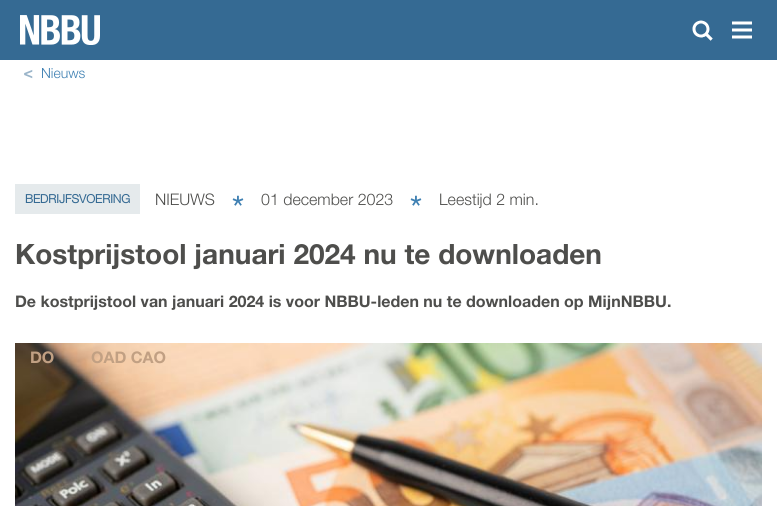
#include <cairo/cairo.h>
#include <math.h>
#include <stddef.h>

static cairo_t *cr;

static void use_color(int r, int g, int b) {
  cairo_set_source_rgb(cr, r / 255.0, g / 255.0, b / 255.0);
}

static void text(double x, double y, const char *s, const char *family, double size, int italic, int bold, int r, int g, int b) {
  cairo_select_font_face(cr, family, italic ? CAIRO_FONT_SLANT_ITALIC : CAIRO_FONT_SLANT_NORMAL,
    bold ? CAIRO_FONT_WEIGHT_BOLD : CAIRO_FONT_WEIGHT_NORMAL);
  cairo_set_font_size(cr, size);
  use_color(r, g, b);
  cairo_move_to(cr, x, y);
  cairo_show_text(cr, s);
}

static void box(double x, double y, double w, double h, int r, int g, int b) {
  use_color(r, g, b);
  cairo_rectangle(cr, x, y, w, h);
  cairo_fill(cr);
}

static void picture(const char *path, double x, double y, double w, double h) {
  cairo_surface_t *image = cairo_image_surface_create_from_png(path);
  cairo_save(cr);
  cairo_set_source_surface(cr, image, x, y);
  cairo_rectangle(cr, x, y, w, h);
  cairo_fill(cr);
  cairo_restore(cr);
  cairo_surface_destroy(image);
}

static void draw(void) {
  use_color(255, 255, 255);
  cairo_paint(cr);
  box(15, 184, 125, 30, 229, 234, 236);
  picture("img_01.png", 232, 195, 12, 11);
  picture("img_01.png", 410, 195, 12, 11);
  picture("img_02.png", 15, 343, 747, 163);
  box(0, 0, 777, 60, 53, 106, 147);
  picture("img_03.png", 20, 15, 80, 30);
  picture("img_04.png", 692, 20, 21, 21);
  picture("img_05.png", 732, 21, 20, 18);
  cairo_save(cr);
  cairo_translate(cr, 33, 70);
  cairo_rotate(cr, 180 * M_PI / 180);
  text(0, 0, ">", "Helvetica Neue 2", 16, 0, 1, 154, 180, 201);
  cairo_restore(cr);
  text(41, 78, "Nieuws", "Helvetica Neue Light", 14, 0, 0, 64, 129, 179);
  text(25, 203, "BEDRIJFSVOERING", "Helvetica Neue", 12, 0, 1, 53, 106, 147);
  text(155, 205, "NIEUWS", "Helvetica Neue Light", 16, 0, 0, 78, 78, 76);
  text(261, 205, "01 december 2023", "Helvetica Neue Light", 16, 0, 0, 78, 78, 76);
  text(439, 205, "Leestijd 2 min.", "Helvetica Neue Light", 16, 0, 0, 78, 78, 76);
  text(15, 264, "Kostprijstool januari 2024 nu te downloaden", "Helvetica Neue 2", 28, 0, 1, 78, 78, 76);
  text(15, 307, "De kostprijstool van januari 2024 is voor NBBU-leden nu te downloaden op MijnNBBU.", "Helvetica Neue 2", 16, 0, 1, 78, 78, 76);
  text(30, 363, "DO", "Helvetica Neue 2", 16, 0, 1, 193, 160, 131);
  text(91, 363, "OAD CAO", "Helvetica Neue 2", 16, 0, 1, 193, 160, 131);
}

int main(void) {
  cairo_surface_t *surface = cairo_image_surface_create(CAIRO_FORMAT_RGB24, 777, 506);
  cr = cairo_create(surface);
  cairo_font_options_t *options = cairo_font_options_create();
  cairo_font_options_set_hint_metrics(options, CAIRO_HINT_METRICS_OFF);
  cairo_font_options_set_hint_style(options, CAIRO_HINT_STYLE_NONE);
  cairo_set_font_options(cr, options);
  cairo_set_miter_limit(cr, 4);
  draw();
  cairo_surface_write_to_png(surface, "out.png");
  cairo_font_options_destroy(options);
  cairo_destroy(cr);
  cairo_surface_destroy(surface);
  return 0;
}
